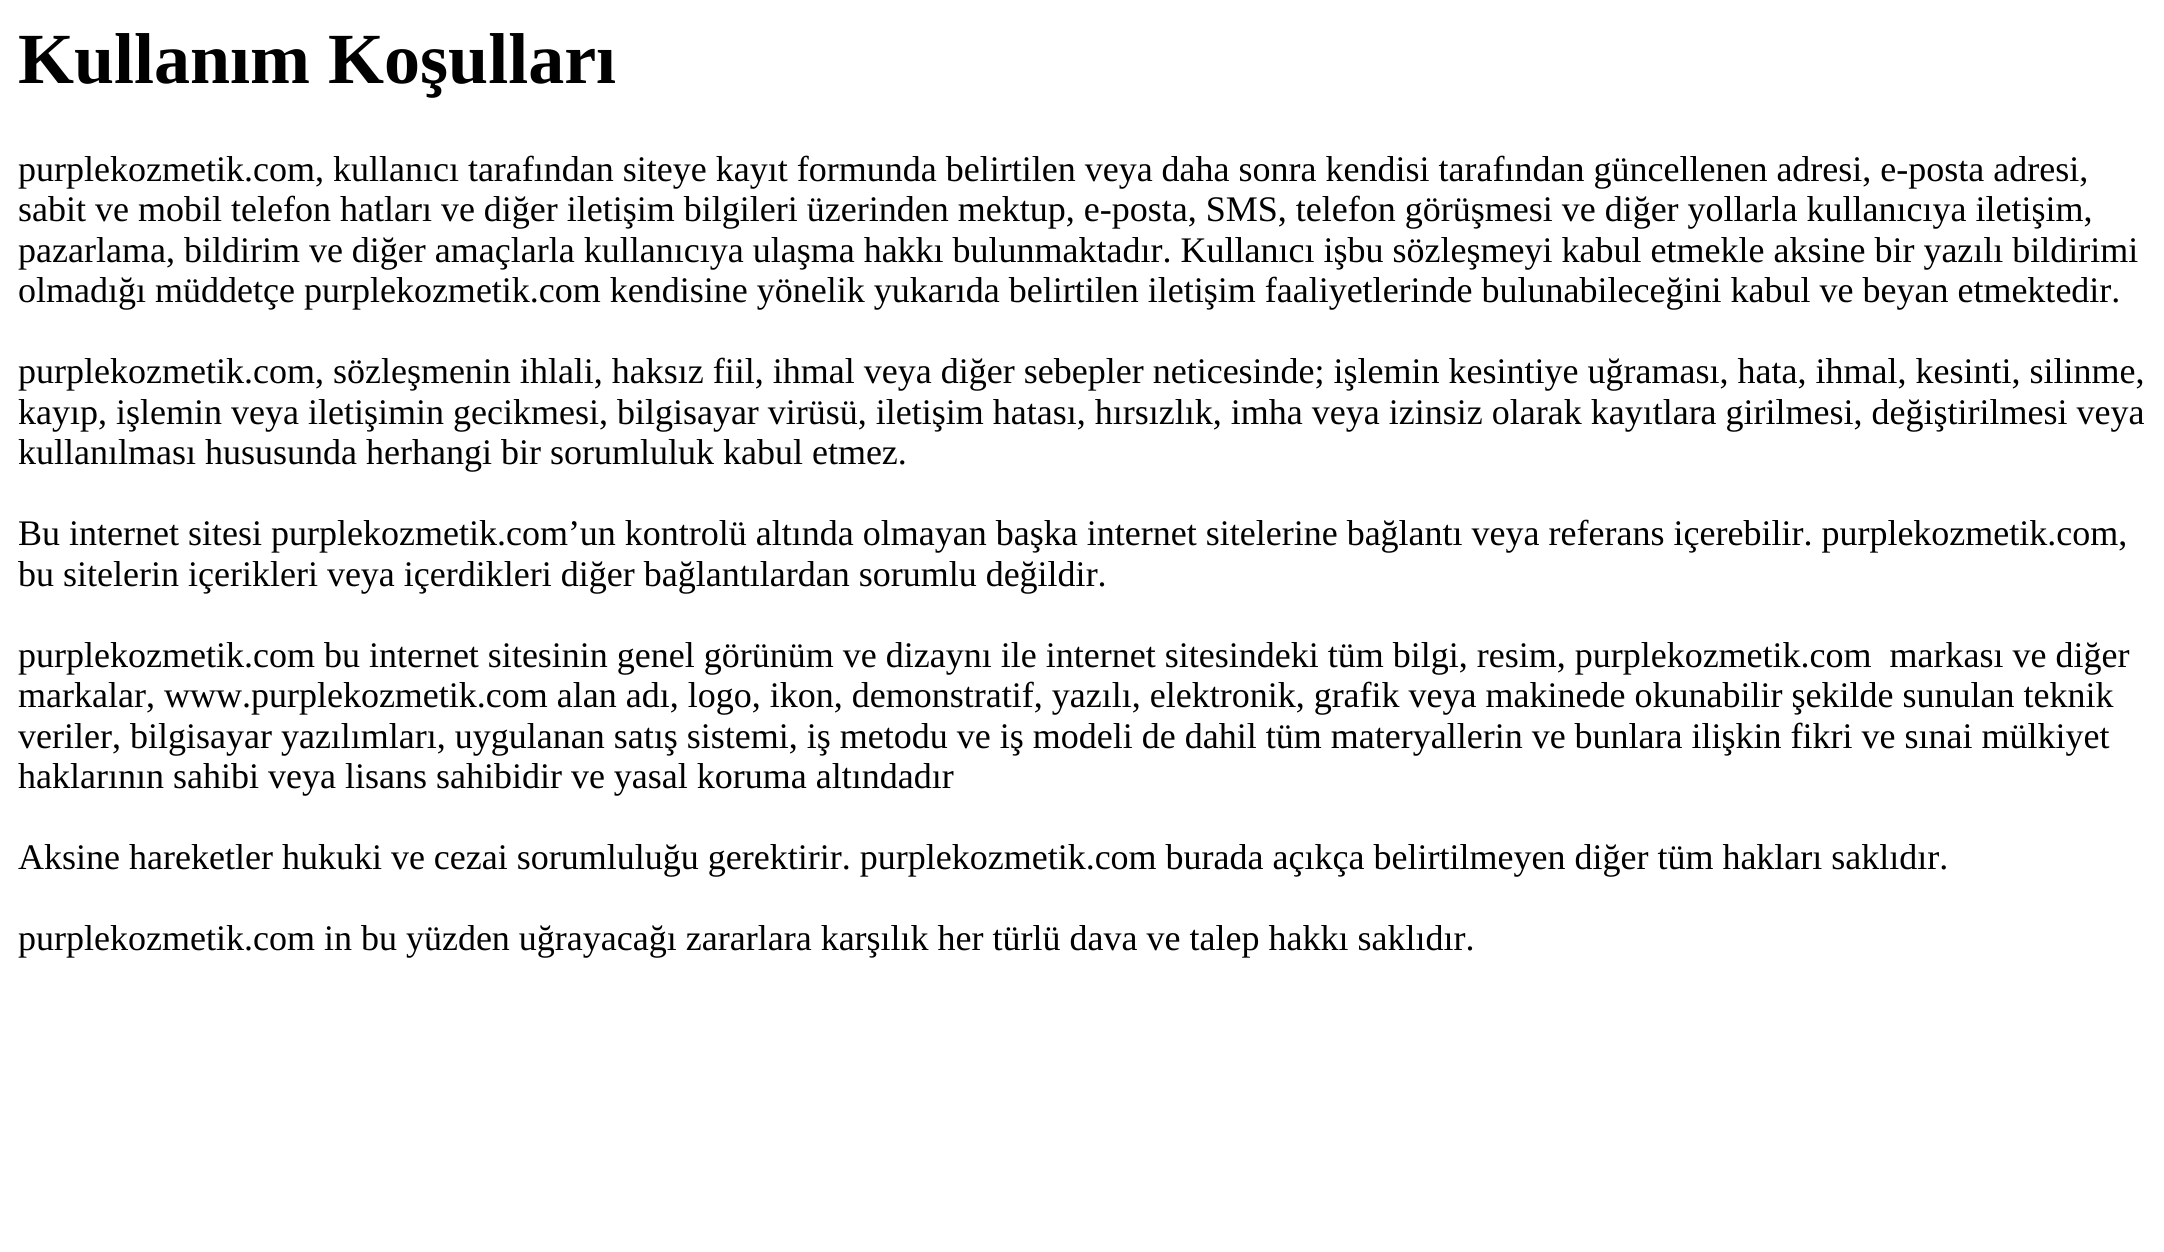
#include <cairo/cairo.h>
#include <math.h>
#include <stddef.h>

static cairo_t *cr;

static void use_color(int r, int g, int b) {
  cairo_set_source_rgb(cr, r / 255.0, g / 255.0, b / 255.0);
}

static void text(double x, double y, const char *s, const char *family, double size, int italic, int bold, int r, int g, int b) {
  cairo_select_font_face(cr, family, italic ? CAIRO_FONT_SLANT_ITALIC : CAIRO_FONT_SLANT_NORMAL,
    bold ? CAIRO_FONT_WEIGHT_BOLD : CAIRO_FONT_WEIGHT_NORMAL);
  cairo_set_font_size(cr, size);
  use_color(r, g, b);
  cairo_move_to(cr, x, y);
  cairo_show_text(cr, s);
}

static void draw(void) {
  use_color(255, 255, 255);
  cairo_paint(cr);
  text(18, 83, "Kullanım Koşulları", "Liberation Serif", 72, 0, 1, 0, 0, 0);
  text(18, 181, "purplekozmetik.com, kullanıcı tarafından siteye kayıt formunda belirtilen veya daha sonra kendisi tarafından güncellenen adresi, e-posta adresi,", "Liberation Serif", 36, 0, 0, 0, 0, 0);
  text(18, 221, "sabit ve mobil telefon hatları ve diğer iletişim bilgileri üzerinden mektup, e-posta, SMS, telefon görüşmesi ve diğer yollarla kullanıcıya iletişim,", "Liberation Serif", 36, 0, 0, 0, 0, 0);
  text(18, 262, "pazarlama, bildirim ve diğer amaçlarla kullanıcıya ulaşma hakkı bulunmaktadır. Kullanıcı işbu sözleşmeyi kabul etmekle aksine bir yazılı bildirimi", "Liberation Serif", 36, 0, 0, 0, 0, 0);
  text(18, 302, "olmadığı müddetçe purplekozmetik.com kendisine yönelik yukarıda belirtilen iletişim faaliyetlerinde bulunabileceğini kabul ve beyan etmektedir.", "Liberation Serif", 36, 0, 0, 0, 0, 0);
  text(18, 383, "purplekozmetik.com, sözleşmenin ihlali, haksız fiil, ihmal veya diğer sebepler neticesinde; işlemin kesintiye uğraması, hata, ihmal, kesinti, silinme,", "Liberation Serif", 36, 0, 0, 0, 0, 0);
  text(18, 424, "kayıp, işlemin veya iletişimin gecikmesi, bilgisayar virüsü, iletişim hatası, hırsızlık, imha veya izinsiz olarak kayıtlara girilmesi, değiştirilmesi veya", "Liberation Serif", 36, 0, 0, 0, 0, 0);
  text(18, 464, "kullanılması hususunda herhangi bir sorumluluk kabul etmez.", "Liberation Serif", 36, 0, 0, 0, 0, 0);
  text(18, 545, "Bu internet sitesi purplekozmetik.com’un kontrolü altında olmayan başka internet sitelerine bağlantı veya referans içerebilir. purplekozmetik.com,", "Liberation Serif", 36, 0, 0, 0, 0, 0);
  text(18, 586, "bu sitelerin içerikleri veya içerdikleri diğer bağlantılardan sorumlu değildir.", "Liberation Serif", 36, 0, 0, 0, 0, 0);
  text(18, 667, "purplekozmetik.com bu internet sitesinin genel görünüm ve dizaynı ile internet sitesindeki tüm bilgi, resim, purplekozmetik.com  markası ve diğer", "Liberation Serif", 36, 0, 0, 0, 0, 0);
  text(18, 707, "markalar, www.purplekozmetik.com alan adı, logo, ikon, demonstratif, yazılı, elektronik, grafik veya makinede okunabilir şekilde sunulan teknik", "Liberation Serif", 36, 0, 0, 0, 0, 0);
  text(18, 748, "veriler, bilgisayar yazılımları, uygulanan satış sistemi, iş metodu ve iş modeli de dahil tüm materyallerin ve bunlara ilişkin fikri ve sınai mülkiyet", "Liberation Serif", 36, 0, 0, 0, 0, 0);
  text(18, 788, "haklarının sahibi veya lisans sahibidir ve yasal koruma altındadır", "Liberation Serif", 36, 0, 0, 0, 0, 0);
  text(18, 869, "Aksine hareketler hukuki ve cezai sorumluluğu gerektirir. purplekozmetik.com burada açıkça belirtilmeyen diğer tüm hakları saklıdır.", "Liberation Serif", 36, 0, 0, 0, 0, 0);
  text(18, 950, "purplekozmetik.com in bu yüzden uğrayacağı zararlara karşılık her türlü dava ve talep hakkı saklıdır.", "Liberation Serif", 36, 0, 0, 0, 0, 0);
}

int main(void) {
  cairo_surface_t *surface = cairo_image_surface_create(CAIRO_FORMAT_RGB24, 2164, 1252);
  cr = cairo_create(surface);
  cairo_font_options_t *options = cairo_font_options_create();
  cairo_font_options_set_hint_metrics(options, CAIRO_HINT_METRICS_OFF);
  cairo_font_options_set_hint_style(options, CAIRO_HINT_STYLE_NONE);
  cairo_set_font_options(cr, options);
  cairo_set_miter_limit(cr, 4);
  draw();
  cairo_surface_write_to_png(surface, "out.png");
  cairo_font_options_destroy(options);
  cairo_destroy(cr);
  cairo_surface_destroy(surface);
  return 0;
}
